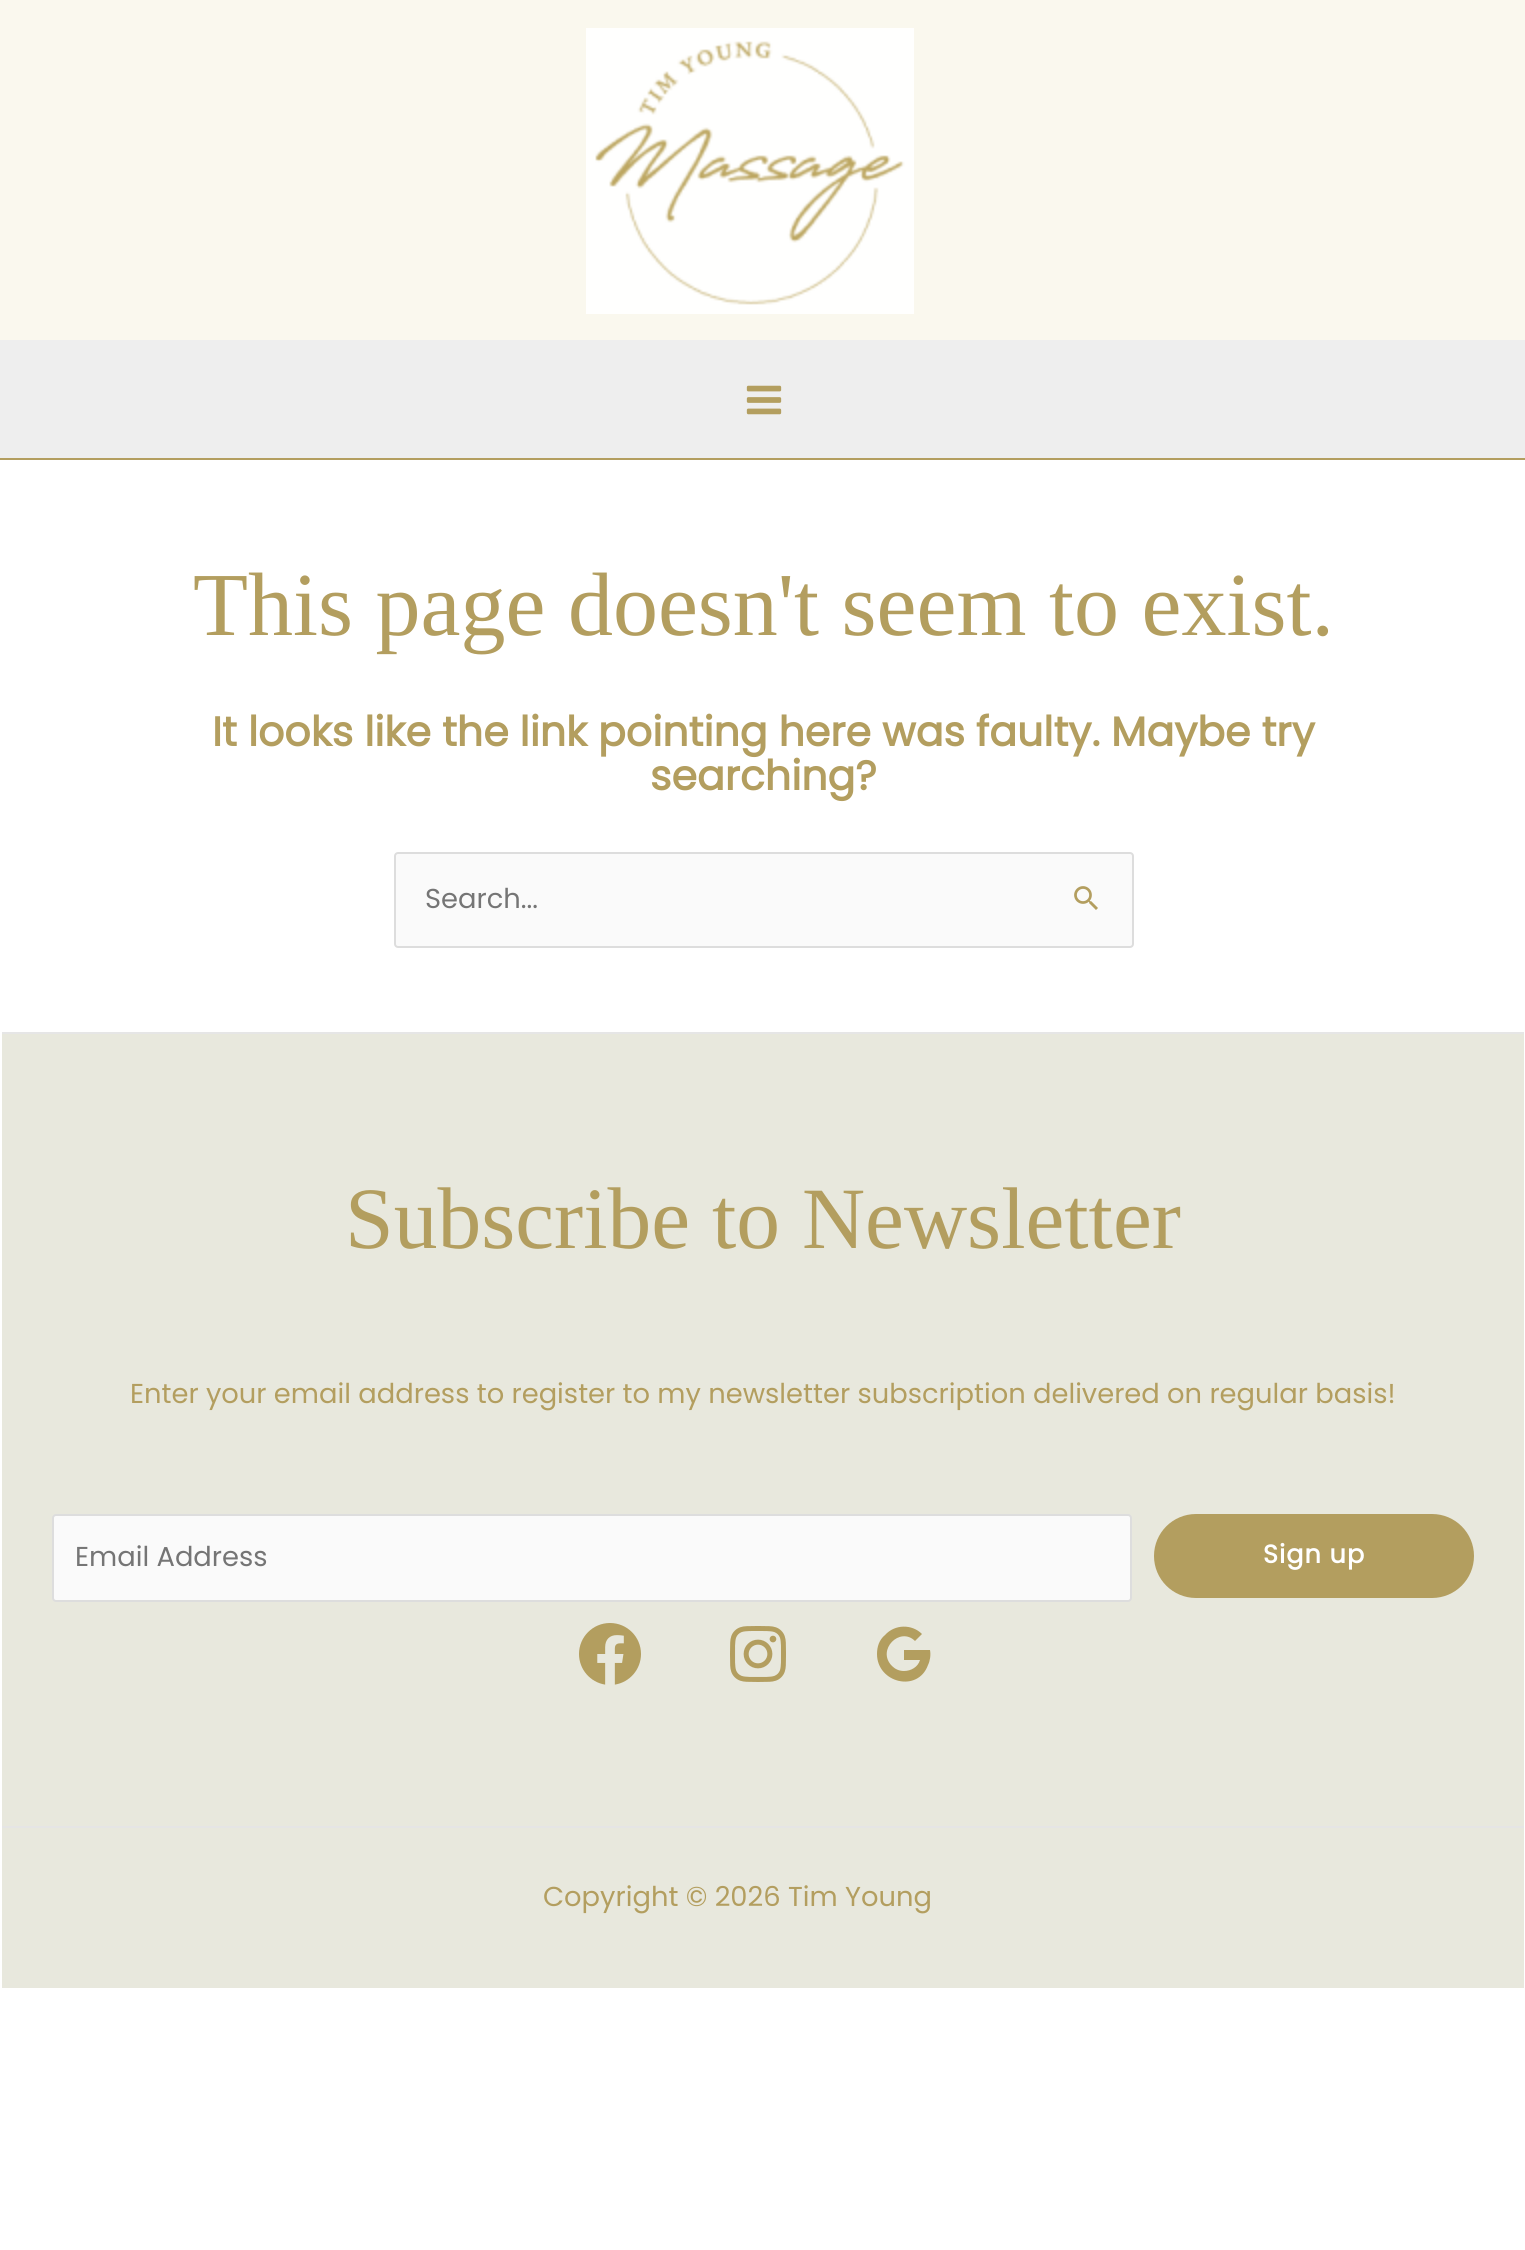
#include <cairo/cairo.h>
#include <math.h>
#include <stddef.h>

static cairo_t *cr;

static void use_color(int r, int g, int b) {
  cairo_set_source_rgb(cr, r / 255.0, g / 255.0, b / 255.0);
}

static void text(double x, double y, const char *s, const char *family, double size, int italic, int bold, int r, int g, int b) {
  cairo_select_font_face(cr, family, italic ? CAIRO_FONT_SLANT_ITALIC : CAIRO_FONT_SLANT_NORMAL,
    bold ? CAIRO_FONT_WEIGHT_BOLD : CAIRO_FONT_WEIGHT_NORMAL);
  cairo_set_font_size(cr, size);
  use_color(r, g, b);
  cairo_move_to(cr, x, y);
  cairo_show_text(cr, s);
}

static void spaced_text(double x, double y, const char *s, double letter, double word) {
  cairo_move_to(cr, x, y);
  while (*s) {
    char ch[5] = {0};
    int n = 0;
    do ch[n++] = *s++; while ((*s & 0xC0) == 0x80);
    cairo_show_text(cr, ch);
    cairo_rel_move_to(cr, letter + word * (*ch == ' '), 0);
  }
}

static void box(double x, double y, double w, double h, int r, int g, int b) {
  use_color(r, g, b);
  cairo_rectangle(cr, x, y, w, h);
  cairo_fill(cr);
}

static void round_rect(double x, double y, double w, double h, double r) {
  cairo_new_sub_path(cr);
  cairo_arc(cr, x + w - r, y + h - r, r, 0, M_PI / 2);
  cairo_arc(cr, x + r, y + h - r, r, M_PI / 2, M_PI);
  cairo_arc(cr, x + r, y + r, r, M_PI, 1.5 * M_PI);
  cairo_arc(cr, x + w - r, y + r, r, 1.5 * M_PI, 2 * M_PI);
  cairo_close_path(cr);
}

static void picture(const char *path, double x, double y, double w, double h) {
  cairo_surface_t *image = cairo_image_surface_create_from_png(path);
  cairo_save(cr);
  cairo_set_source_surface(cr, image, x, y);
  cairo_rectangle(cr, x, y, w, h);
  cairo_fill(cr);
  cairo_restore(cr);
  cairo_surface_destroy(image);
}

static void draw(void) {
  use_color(255, 255, 255);
  cairo_paint(cr);
  box(0, 0, 1525, 340, 250, 248, 238);
  picture("img_01.png", 586, 28, 328, 286);
  box(0, 340, 1525, 118, 238, 238, 238);
  box(0, 458, 1525, 2, 179, 158, 95);
  picture("img_02.png", 746, 385, 36, 30);
  use_color(250, 250, 250);
  round_rect(395, 853, 738, 94, 3);
  cairo_fill_preserve(cr);
  use_color(221, 221, 221);
  cairo_stroke(cr);
  picture("img_03.png", 1074, 886, 24, 24);
  box(2, 1034, 1522, 792, 232, 232, 221);
  box(2, 1032, 1522, 2, 230, 230, 230);
  use_color(250, 250, 250);
  round_rect(53, 1515, 1078, 86, 3);
  cairo_fill_preserve(cr);
  use_color(221, 221, 221);
  cairo_stroke(cr);
  use_color(179, 158, 95);
  round_rect(1159, 1519, 310, 74, 37);
  cairo_fill_preserve(cr);
  cairo_set_line_width(cr, 10);
  cairo_stroke(cr);
  picture("img_04.png", 579, 1623, 62, 62);
  picture("img_05.png", 730, 1626, 56, 56);
  cairo_new_path(cr);
  cairo_move_to(cr, 904, 1650);
  cairo_line_to(cr, 930, 1650);
  cairo_curve_to(cr, 931, 1655, 930, 1661, 928, 1665);
  cairo_curve_to(cr, 918, 1693, 877, 1683, 877, 1654);
  cairo_curve_to(cr, 877, 1647, 879, 1640, 885, 1635);
  cairo_curve_to(cr, 895, 1624, 912, 1624, 922, 1634);
  cairo_line_to(cr, 915, 1641);
  cairo_curve_to(cr, 900, 1626, 876, 1650, 892, 1666);
  cairo_curve_to(cr, 895, 1669, 899, 1671, 904, 1671);
  cairo_curve_to(cr, 911, 1671, 918, 1667, 920, 1660);
  cairo_line_to(cr, 904, 1660);
  cairo_close_path(cr);
  cairo_fill(cr);
  box(2, 1828, 1522, 160, 232, 232, 221);
  box(2, 1826, 1522, 2, 229, 229, 229);
  text(193, 635, "This page doesn't seem to exist.", "Liberation Serif", 90, 0, 0, 179, 158, 95);
  text(212, 746, "It looks like the link pointing here was faulty. Maybe try", "Poppins", 41.05, 0, 1, 179, 158, 95);
  text(650, 790, "searching?", "Poppins", 41.05, 0, 1, 179, 158, 95);
  text(425, 908, "Search...", "Poppins", 27.35, 0, 0, 117, 117, 117);
  text(345, 1248, "Subscribe to Newsletter", "Liberation Serif", 87.5, 0, 0, 179, 158, 95);
  text(130, 1403, "Enter your email address to register to my newsletter subscription delivered on regular basis!", "Poppins", 27.35, 0, 0, 179, 158, 95);
  text(75, 1566, "Email Address", "Poppins", 27.35, 0, 0, 117, 117, 117);
  cairo_select_font_face(cr, "Poppins", CAIRO_FONT_SLANT_NORMAL, CAIRO_FONT_WEIGHT_BOLD);
  cairo_set_font_size(cr, 25.5);
  use_color(255, 255, 255);
  spaced_text(1263, 1563, "Sign up", 1, 0);
  text(543, 1906, "Copyright © 2026 Tim Young", "Poppins", 27.35, 0, 0, 179, 158, 95);
}

int main(void) {
  cairo_surface_t *surface = cairo_image_surface_create(CAIRO_FORMAT_RGB24, 1525, 2250);
  cr = cairo_create(surface);
  cairo_font_options_t *options = cairo_font_options_create();
  cairo_font_options_set_hint_metrics(options, CAIRO_HINT_METRICS_OFF);
  cairo_font_options_set_hint_style(options, CAIRO_HINT_STYLE_NONE);
  cairo_set_font_options(cr, options);
  cairo_set_miter_limit(cr, 4);
  draw();
  cairo_surface_write_to_png(surface, "out.png");
  cairo_font_options_destroy(options);
  cairo_destroy(cr);
  cairo_surface_destroy(surface);
  return 0;
}
